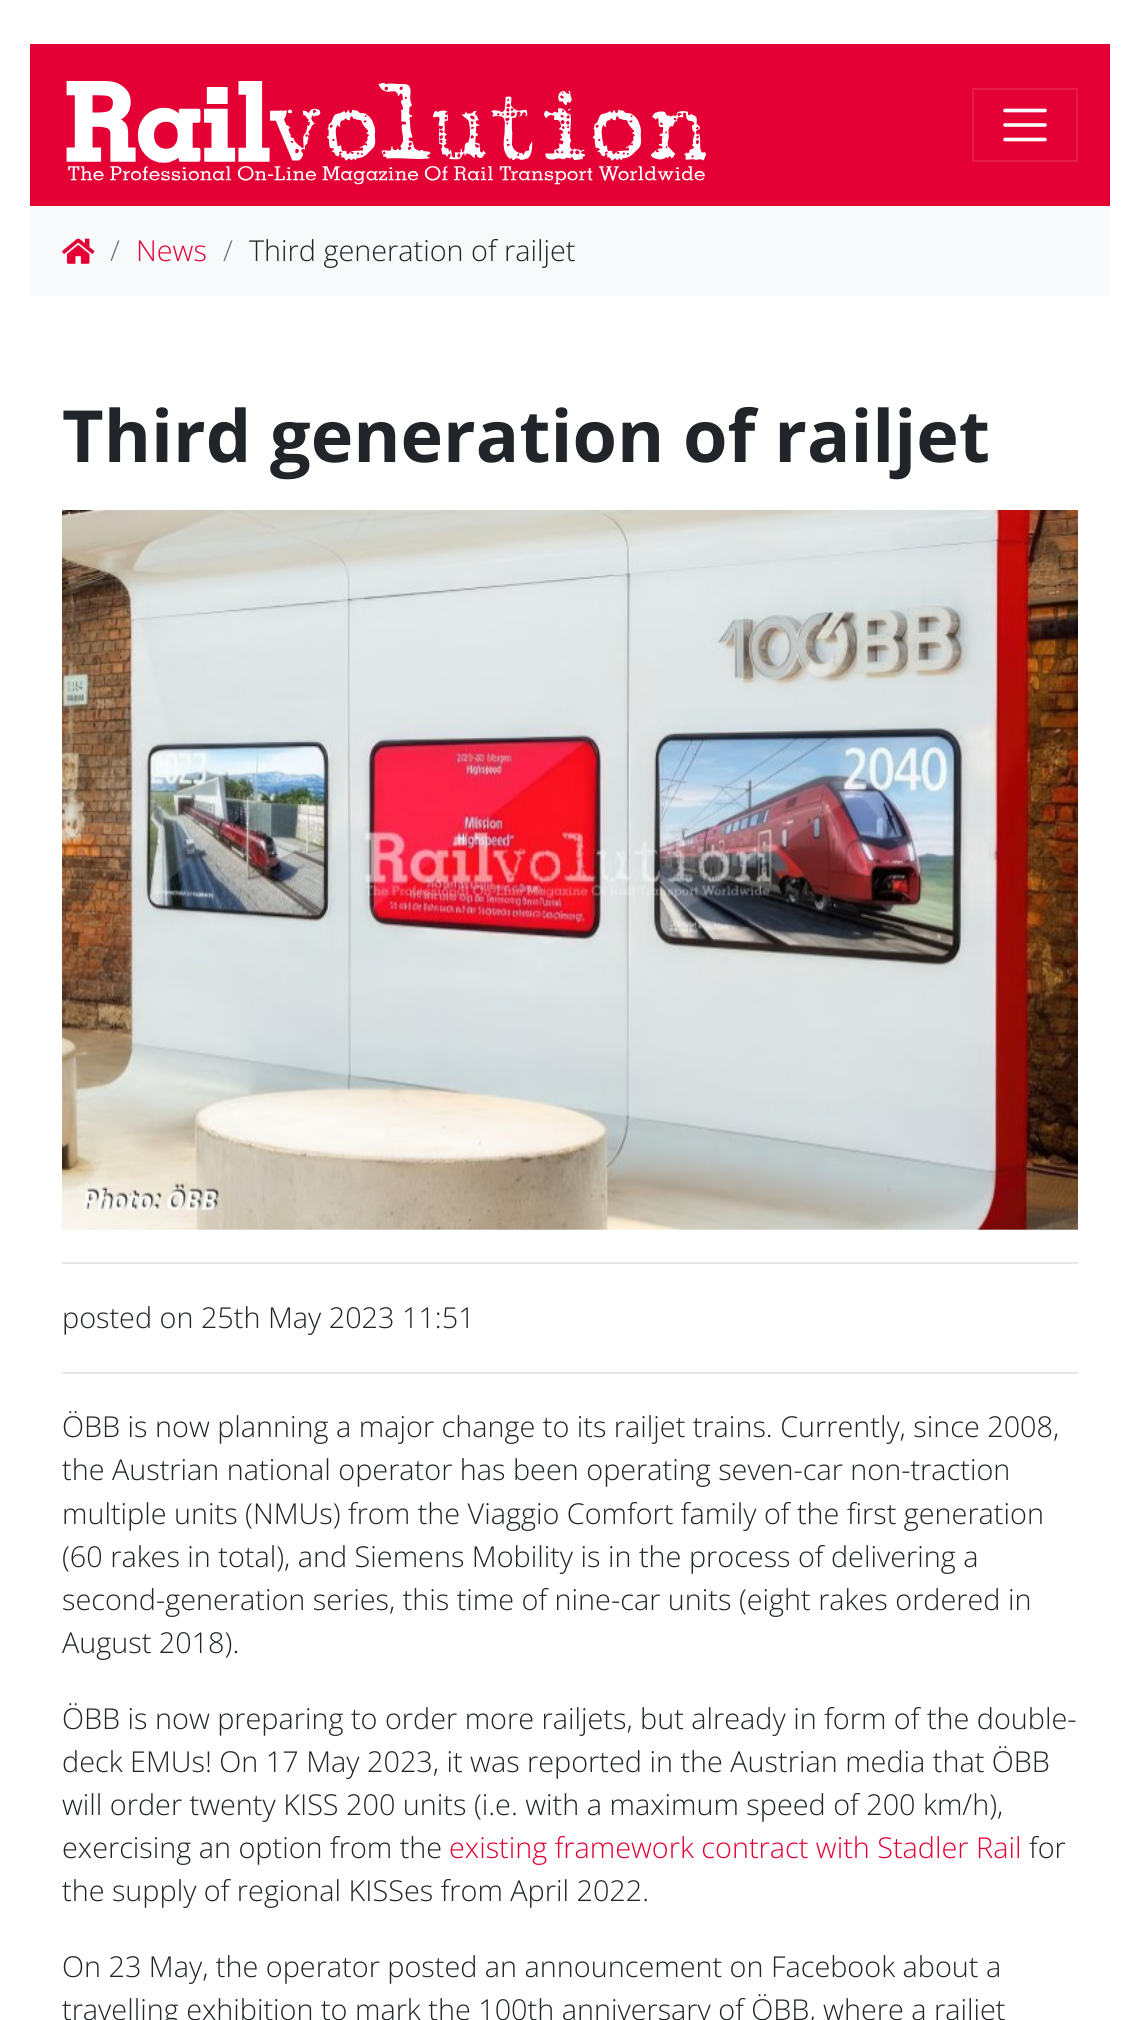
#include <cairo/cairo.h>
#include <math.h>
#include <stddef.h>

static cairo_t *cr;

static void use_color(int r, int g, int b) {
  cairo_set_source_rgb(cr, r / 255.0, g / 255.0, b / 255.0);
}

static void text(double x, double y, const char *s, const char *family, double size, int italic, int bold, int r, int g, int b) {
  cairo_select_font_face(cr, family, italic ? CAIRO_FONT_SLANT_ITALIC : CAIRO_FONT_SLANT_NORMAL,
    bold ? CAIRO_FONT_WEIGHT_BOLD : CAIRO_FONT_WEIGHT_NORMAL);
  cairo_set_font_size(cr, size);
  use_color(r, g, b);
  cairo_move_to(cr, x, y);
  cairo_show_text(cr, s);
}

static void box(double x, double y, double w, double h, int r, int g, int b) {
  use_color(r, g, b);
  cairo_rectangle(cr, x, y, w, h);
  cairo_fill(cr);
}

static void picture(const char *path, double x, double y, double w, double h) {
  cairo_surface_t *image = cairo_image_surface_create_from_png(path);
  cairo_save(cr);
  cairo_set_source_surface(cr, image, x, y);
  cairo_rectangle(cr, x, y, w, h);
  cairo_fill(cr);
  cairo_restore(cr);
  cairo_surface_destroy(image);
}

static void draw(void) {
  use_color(255, 255, 255);
  cairo_paint(cr);
  box(30, 44, 1080, 162, 228, 0, 53);
  picture("img_01.png", 66, 81, 641, 104);
  cairo_rectangle(cr, 973, 89, 104, 72);
  use_color(231, 26, 73);
  cairo_stroke(cr);
  cairo_new_path(cr);
  cairo_move_to(cr, 1005, 110.5);
  cairo_line_to(cr, 1045, 110.5);
  cairo_move_to(cr, 1005, 125);
  cairo_line_to(cr, 1045, 125);
  cairo_move_to(cr, 1005, 139.5);
  cairo_line_to(cr, 1045, 139.5);
  use_color(255, 255, 255);
  cairo_set_line_width(cr, 3.6);
  cairo_set_line_cap(cr, CAIRO_LINE_CAP_ROUND);
  cairo_stroke(cr);
  box(30, 206, 1080, 90, 248, 249, 250);
  picture("img_02.png", 62, 238, 33, 26);
  picture("img_03.png", 62, 510, 1016, 720);
  box(62, 1262, 1016, 2, 230, 230, 230);
  box(62, 1372, 1016, 2, 230, 230, 230);
  text(110, 261, "/", "Open Sans Light", 28.8, 0, 0, 108, 117, 125);
  text(136, 261, "News", "Open Sans Light", 28.8, 0, 0, 228, 0, 53);
  text(223, 261, "/", "Open Sans Light", 28.8, 0, 0, 108, 117, 125);
  text(249, 261, "Third generation of railjet", "Open Sans Light", 28.8, 0, 0, 33, 37, 41);
  text(62, 462, "Third generation of railjet", "Open Sans", 72, 0, 1, 33, 37, 41);
  text(62, 1328, "posted on 25th May 2023 11:51", "Open Sans Light", 28.8, 0, 0, 33, 37, 41);
  text(62, 1437, "ÖBB is now planning a major change to its railjet trains. Currently, since 2008,", "Open Sans Light", 28.8, 0, 0, 33, 37, 41);
  text(62, 1480, "the Austrian national operator has been operating seven-car non-traction", "Open Sans Light", 28.8, 0, 0, 33, 37, 41);
  text(62, 1524, "multiple units (NMUs) from the Viaggio Comfort family of the first generation", "Open Sans Light", 28.8, 0, 0, 33, 37, 41);
  text(62, 1567, "(60 rakes in total), and Siemens Mobility is in the process of delivering a", "Open Sans Light", 28.8, 0, 0, 33, 37, 41);
  text(62, 1610, "second-generation series, this time of nine-car units (eight rakes ordered in", "Open Sans Light", 28.8, 0, 0, 33, 37, 41);
  text(62, 1653, "August 2018).", "Open Sans Light", 28.8, 0, 0, 33, 37, 41);
  text(62, 1729, "ÖBB is now preparing to order more railjets, but already in form of the double-", "Open Sans Light", 28.8, 0, 0, 33, 37, 41);
  text(62, 1772, "deck EMUs! On 17 May 2023, it was reported in the Austrian media that ÖBB", "Open Sans Light", 28.8, 0, 0, 33, 37, 41);
  text(62, 1815, "will order twenty KISS 200 units (i.e. with a maximum speed of 200 km/h),", "Open Sans Light", 28.8, 0, 0, 33, 37, 41);
  text(62, 1858, "exercising an option from the", "Open Sans Light", 28.8, 0, 0, 33, 37, 41);
  text(449, 1858, "existing framework contract with Stadler Rail", "Open Sans Light", 28.8, 0, 0, 228, 0, 53);
  text(1029, 1858, "for", "Open Sans Light", 28.8, 0, 0, 33, 37, 41);
  text(62, 1901, "the supply of regional KISSes from April 2022.", "Open Sans Light", 28.8, 0, 0, 33, 37, 41);
  text(62, 1977, "On 23 May, the operator posted an announcement on Facebook about a", "Open Sans Light", 28.8, 0, 0, 33, 37, 41);
  text(62, 2020, "travelling exhibition to mark the 100th anniversary of ÖBB, where a railjet", "Open Sans Light", 28.8, 0, 0, 33, 37, 41);
}

int main(void) {
  cairo_surface_t *surface = cairo_image_surface_create(CAIRO_FORMAT_RGB24, 1139, 2020);
  cr = cairo_create(surface);
  cairo_font_options_t *options = cairo_font_options_create();
  cairo_font_options_set_hint_metrics(options, CAIRO_HINT_METRICS_OFF);
  cairo_font_options_set_hint_style(options, CAIRO_HINT_STYLE_NONE);
  cairo_set_font_options(cr, options);
  cairo_set_miter_limit(cr, 4);
  draw();
  cairo_surface_write_to_png(surface, "out.png");
  cairo_font_options_destroy(options);
  cairo_destroy(cr);
  cairo_surface_destroy(surface);
  return 0;
}
